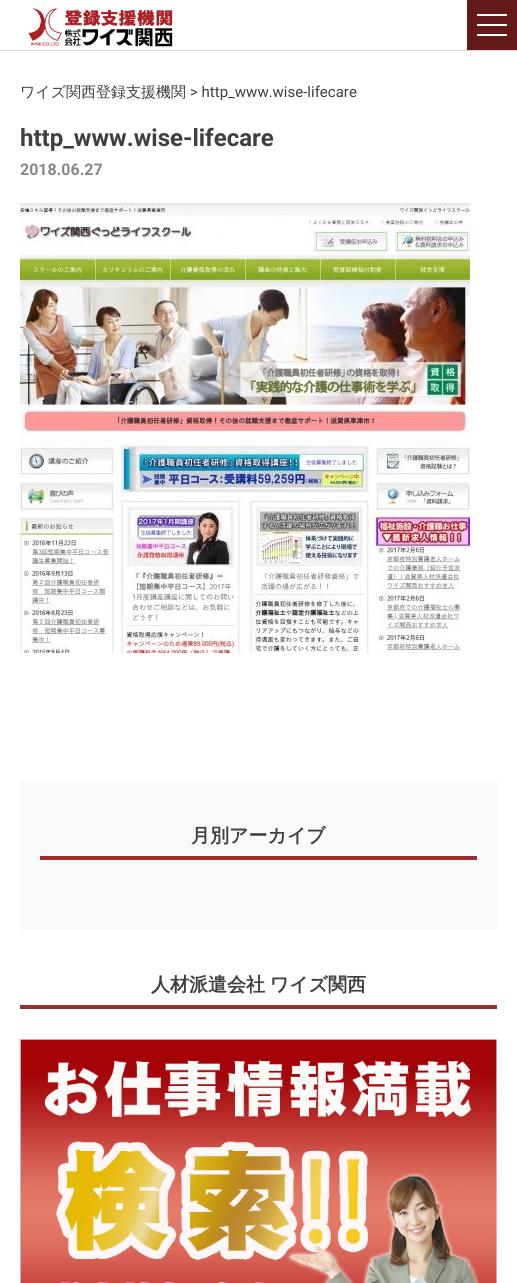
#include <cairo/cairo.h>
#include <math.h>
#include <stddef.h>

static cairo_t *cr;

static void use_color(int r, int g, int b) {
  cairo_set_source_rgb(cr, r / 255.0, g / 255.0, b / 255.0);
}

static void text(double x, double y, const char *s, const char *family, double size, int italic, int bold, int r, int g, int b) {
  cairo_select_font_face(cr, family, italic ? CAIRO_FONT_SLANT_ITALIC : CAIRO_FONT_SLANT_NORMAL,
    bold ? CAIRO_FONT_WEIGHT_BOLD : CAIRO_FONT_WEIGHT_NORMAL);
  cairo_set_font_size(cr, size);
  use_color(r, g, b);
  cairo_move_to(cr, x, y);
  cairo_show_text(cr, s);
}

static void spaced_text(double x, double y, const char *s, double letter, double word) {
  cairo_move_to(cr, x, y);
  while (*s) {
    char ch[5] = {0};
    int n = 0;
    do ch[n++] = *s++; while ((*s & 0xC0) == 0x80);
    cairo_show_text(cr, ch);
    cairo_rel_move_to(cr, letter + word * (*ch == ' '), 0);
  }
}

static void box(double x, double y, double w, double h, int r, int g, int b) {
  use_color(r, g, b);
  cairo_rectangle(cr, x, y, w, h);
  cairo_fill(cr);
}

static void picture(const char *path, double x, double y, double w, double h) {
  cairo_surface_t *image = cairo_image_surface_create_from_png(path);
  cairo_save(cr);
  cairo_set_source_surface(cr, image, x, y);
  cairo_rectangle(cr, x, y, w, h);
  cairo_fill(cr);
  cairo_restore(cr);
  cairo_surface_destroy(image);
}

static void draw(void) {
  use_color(255, 255, 255);
  cairo_paint(cr);
  box(0, 50, 517, 1, 214, 214, 214);
  picture("img_01.png", 28, 8, 145, 39);
  box(467, 0, 50, 50, 100, 25, 25);
  box(477, 14, 30, 2, 255, 255, 255);
  box(477, 24, 30, 2, 255, 255, 255);
  box(477, 34, 30, 2, 255, 255, 255);
  picture("img_02.png", 20, 203, 450, 450);
  box(20, 781, 477, 149, 249, 249, 249);
  box(40, 856, 437, 4, 158, 45, 45);
  box(20, 1005, 477, 4, 158, 45, 45);
  picture("img_03.png", 20, 1039, 477, 244);
  text(20, 97, "ワイズ関西登録支援機関", "WenQuanYi Zen Hei Medium", 15, 0, 0, 63, 63, 63);
  text(190, 97, "> http_www.wise-lifecare", "Roboto", 15, 0, 0, 63, 63, 63);
  text(20, 146, "http_www.wise-lifecare", "Roboto", 24, 0, 1, 63, 63, 63);
  text(20, 175, "2018.06.27", "Roboto", 16, 0, 1, 135, 135, 135);
  text(191, 842, "月別アーカイブ", "WenQuanYi Zen Hei", 19, 0, 1, 63, 63, 63);
  spaced_text(151, 991, "人材派遣会社 ワイズ関西", 0, -1);
}

int main(void) {
  cairo_surface_t *surface = cairo_image_surface_create(CAIRO_FORMAT_RGB24, 517, 1283);
  cr = cairo_create(surface);
  cairo_font_options_t *options = cairo_font_options_create();
  cairo_font_options_set_hint_metrics(options, CAIRO_HINT_METRICS_OFF);
  cairo_font_options_set_hint_style(options, CAIRO_HINT_STYLE_NONE);
  cairo_set_font_options(cr, options);
  cairo_set_miter_limit(cr, 4);
  draw();
  cairo_surface_write_to_png(surface, "out.png");
  cairo_font_options_destroy(options);
  cairo_destroy(cr);
  cairo_surface_destroy(surface);
  return 0;
}
